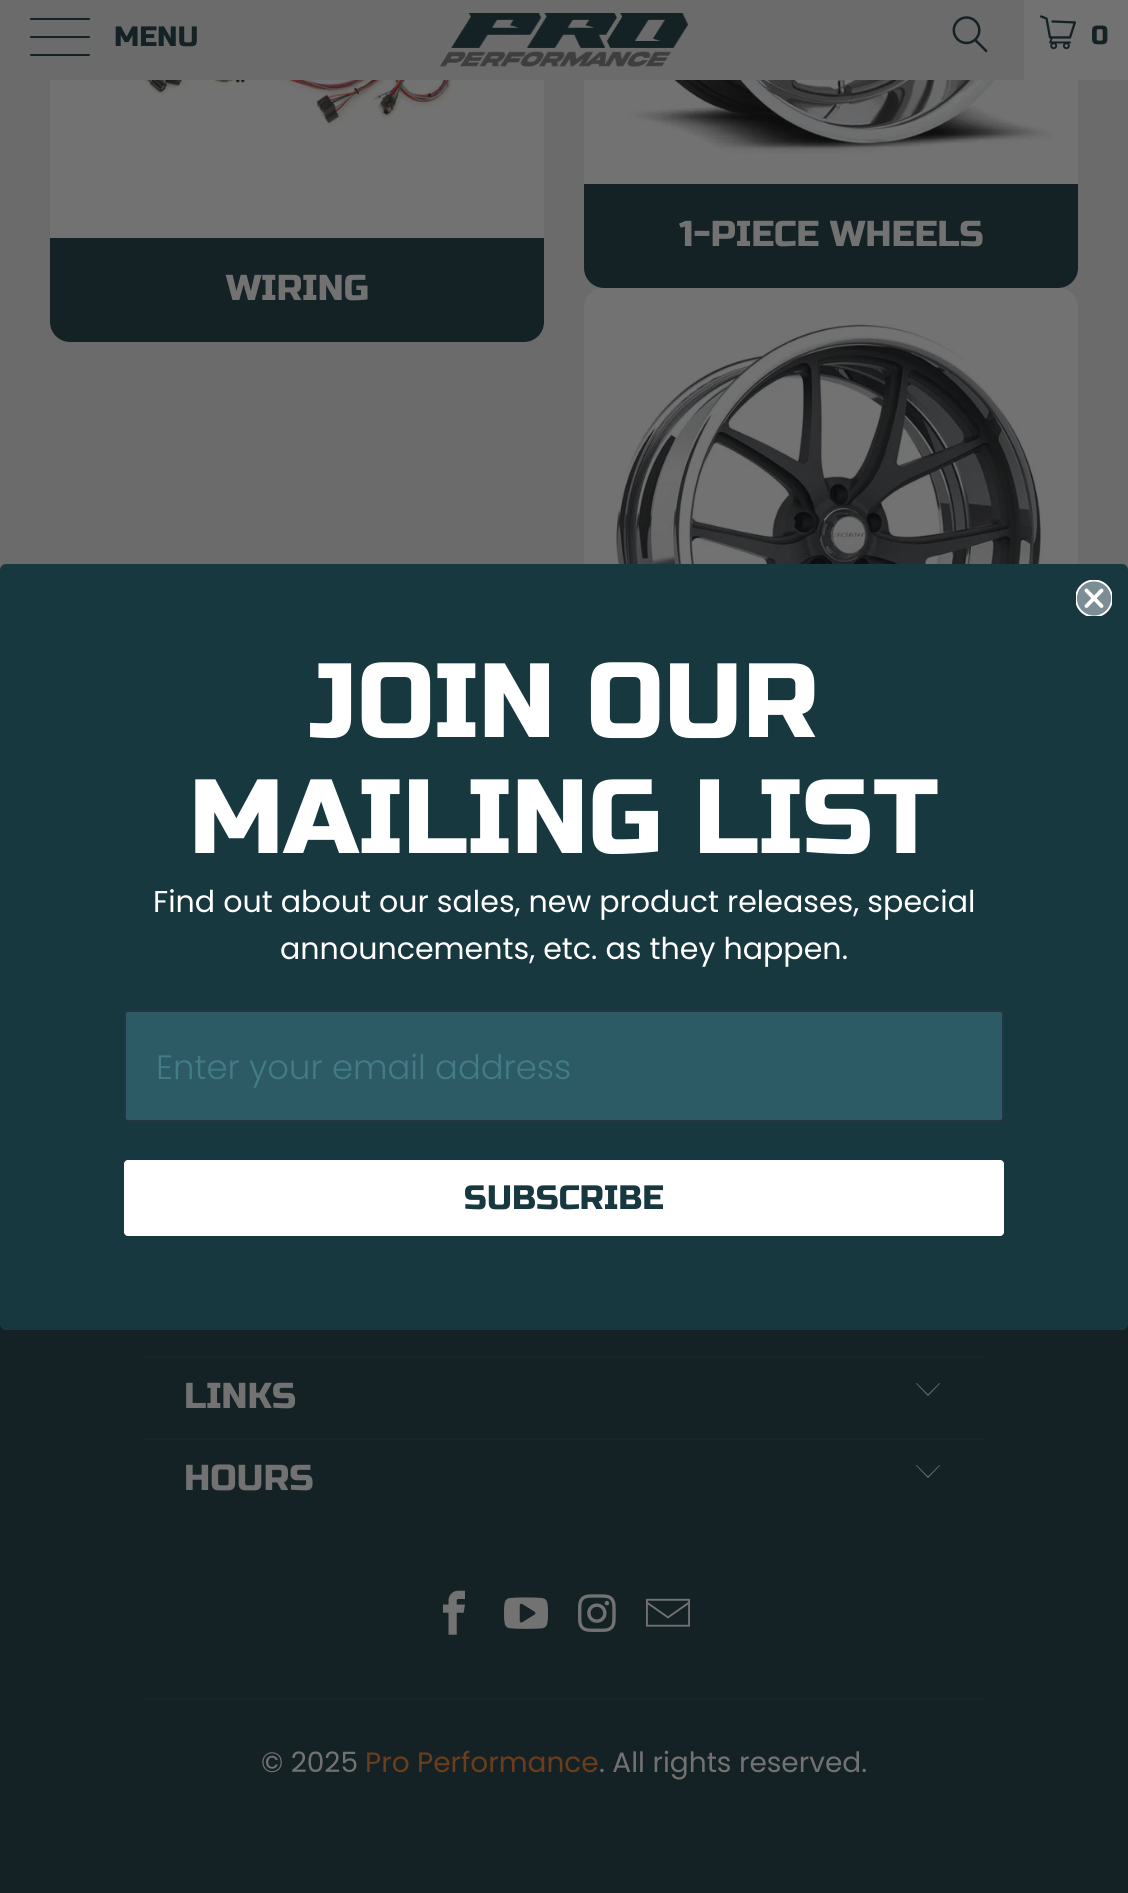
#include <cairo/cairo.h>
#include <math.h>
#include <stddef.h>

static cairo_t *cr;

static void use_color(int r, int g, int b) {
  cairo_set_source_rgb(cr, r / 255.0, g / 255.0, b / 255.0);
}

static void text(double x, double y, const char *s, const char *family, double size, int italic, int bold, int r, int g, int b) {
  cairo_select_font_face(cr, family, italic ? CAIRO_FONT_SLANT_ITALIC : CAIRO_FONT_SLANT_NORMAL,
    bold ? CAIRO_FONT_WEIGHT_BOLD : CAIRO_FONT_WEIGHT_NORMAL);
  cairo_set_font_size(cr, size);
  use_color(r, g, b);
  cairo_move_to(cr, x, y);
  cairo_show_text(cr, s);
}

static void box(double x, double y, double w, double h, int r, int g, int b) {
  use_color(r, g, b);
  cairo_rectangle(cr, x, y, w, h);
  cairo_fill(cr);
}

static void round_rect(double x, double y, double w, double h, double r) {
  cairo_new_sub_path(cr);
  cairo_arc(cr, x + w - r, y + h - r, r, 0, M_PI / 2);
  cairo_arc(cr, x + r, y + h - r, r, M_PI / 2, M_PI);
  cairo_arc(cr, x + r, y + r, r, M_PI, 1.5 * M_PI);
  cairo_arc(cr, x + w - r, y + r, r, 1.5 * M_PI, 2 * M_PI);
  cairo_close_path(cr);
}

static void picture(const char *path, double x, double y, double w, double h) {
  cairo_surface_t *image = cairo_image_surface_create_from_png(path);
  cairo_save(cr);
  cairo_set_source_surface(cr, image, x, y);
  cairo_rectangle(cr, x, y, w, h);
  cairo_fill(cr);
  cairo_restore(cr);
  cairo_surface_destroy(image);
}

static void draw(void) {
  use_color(21, 34, 37);
  cairo_paint(cr);
  box(0, 80, 1128, 490, 107, 107, 107);
  use_color(114, 114, 114);
  round_rect(584, -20, 494, 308, 20);
  cairo_fill(cr);
  round_rect(50, -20, 494, 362, 20);
  cairo_fill(cr);
  box(0, 0, 1024, 80, 107, 107, 107);
  use_color(21, 34, 37);
  round_rect(30, 18, 60, 2, 1);
  cairo_fill(cr);
  round_rect(30, 36, 60, 2, 1);
  cairo_fill(cr);
  round_rect(30, 54, 60, 2, 1);
  cairo_fill(cr);
  picture("img_01.png", 440, 13, 248, 54);
  picture("img_02.png", 952, 16, 36, 37);
  box(1078, 0, 50, 80, 114, 114, 114);
  picture("img_03.png", 1040, 15, 36, 35);
  picture("img_04.png", 621, 80, 432, 74);
  use_color(21, 34, 37);
  cairo_new_path(cr);
  cairo_move_to(cr, 585, 185);
  cairo_line_to(cr, 1077, 185);
  cairo_line_to(cr, 1077, 268);
  cairo_curve_to(cr, 1077, 278.5, 1068.5, 287, 1058, 287);
  cairo_line_to(cr, 604, 287);
  cairo_curve_to(cr, 593.5, 287, 585, 278.5, 585, 268);
  cairo_close_path(cr);
  cairo_fill_preserve(cr);
  cairo_stroke(cr);
  picture("img_05.png", 67, 80, 451, 47);
  cairo_new_path(cr);
  cairo_move_to(cr, 51, 239);
  cairo_line_to(cr, 543, 239);
  cairo_line_to(cr, 543, 322);
  cairo_curve_to(cr, 543, 332.5, 534.5, 341, 524, 341);
  cairo_line_to(cr, 70, 341);
  cairo_curve_to(cr, 59.5, 341, 51, 332.5, 51, 322);
  cairo_close_path(cr);
  cairo_fill_preserve(cr);
  cairo_stroke(cr);
  use_color(114, 114, 114);
  round_rect(584, 288, 494, 598, 20);
  cairo_fill(cr);
  picture("img_06.png", 584, 289, 494, 275);
  use_color(23, 56, 63);
  round_rect(0, 564, 1128, 766, 6);
  cairo_fill(cr);
  cairo_save(cr);
  cairo_rectangle(cr, 1076, 580, 36, 36);
  cairo_clip(cr);
  use_color(125, 141, 149);
  cairo_arc(cr, 1094, 598.5, 18, 0, 2 * M_PI);
  cairo_fill_preserve(cr);
  use_color(255, 255, 255);
  cairo_set_line_width(cr, 1.9);
  cairo_stroke(cr);
  cairo_restore(cr);
  cairo_new_path(cr);
  cairo_move_to(cr, 1086.5, 590.5);
  cairo_line_to(cr, 1101.5, 606);
  cairo_move_to(cr, 1086.5, 606);
  cairo_line_to(cr, 1101.5, 590.5);
  cairo_close_path(cr);
  use_color(255, 255, 255);
  cairo_set_line_width(cr, 3.8);
  cairo_set_line_cap(cr, CAIRO_LINE_CAP_ROUND);
  cairo_set_line_join(cr, CAIRO_LINE_JOIN_ROUND);
  cairo_stroke(cr);
  use_color(44, 91, 101);
  round_rect(125, 1011, 878, 110, 3);
  cairo_fill_preserve(cr);
  use_color(35, 53, 70);
  cairo_set_line_width(cr, 2);
  cairo_set_line_cap(cr, CAIRO_LINE_CAP_BUTT);
  cairo_set_line_join(cr, CAIRO_LINE_JOIN_MITER);
  cairo_stroke(cr);
  use_color(255, 255, 255);
  round_rect(124, 1160, 880, 76, 4);
  cairo_fill(cr);
  box(144, 1356, 840, 2, 23, 38, 41);
  use_color(114, 114, 114);
  cairo_new_path(cr);
  cairo_move_to(cr, 928, 1396);
  cairo_line_to(cr, 916, 1383.5);
  cairo_line_to(cr, 916.5, 1383);
  cairo_line_to(cr, 928, 1394.5);
  cairo_line_to(cr, 939.5, 1383);
  cairo_line_to(cr, 940, 1383.5);
  cairo_close_path(cr);
  cairo_fill(cr);
  box(144, 1438, 840, 2, 23, 38, 41);
  use_color(114, 114, 114);
  cairo_new_path(cr);
  cairo_move_to(cr, 928, 1478);
  cairo_line_to(cr, 916, 1465.5);
  cairo_line_to(cr, 916.5, 1465);
  cairo_line_to(cr, 928, 1476.5);
  cairo_line_to(cr, 939.5, 1465);
  cairo_line_to(cr, 940, 1465.5);
  cairo_close_path(cr);
  cairo_fill(cr);
  picture("img_07.png", 443, 1590, 22, 45);
  picture("img_08.png", 504, 1597, 44, 32);
  picture("img_09.png", 578, 1594, 38, 38);
  picture("img_10.png", 646, 1598, 44, 29);
  box(144, 1698, 840, 2, 23, 38, 41);
  text(114, 46, "MENU", "Russo One", 28, 0, 0, 21, 34, 37);
  text(1091, 44, "0", "Russo One", 26, 0, 0, 21, 34, 37);
  text(679, 246, "1-PIECE WHEELS", "Russo One", 36, 0, 0, 114, 114, 114);
  text(226, 300, "WIRING", "Russo One", 36, 0, 0, 114, 114, 114);
  text(309, 737, "JOIN OUR", "Russo One", 105.25, 0, 0, 255, 255, 255);
  text(189, 853, "MAILING LIST", "Russo One", 105.25, 0, 0, 255, 255, 255);
  text(153, 912, "Find out about our sales, new product releases, special", "Poppins", 30.1, 0, 0, 255, 255, 255);
  text(280, 959, "announcements, etc. as they happen.", "Poppins", 30.1, 0, 0, 255, 255, 255);
  text(156, 1079, "Enter your email address", "Poppins Light", 33.8, 0, 0, 67, 123, 135);
  text(464, 1209, "SUBSCRIBE", "Russo One", 33.8, 0, 0, 23, 56, 63);
  text(184, 1408, "LINKS", "Russo One", 36, 0, 0, 114, 114, 114);
  text(184, 1490, "HOURS", "Russo One", 36, 0, 0, 114, 114, 114);
  text(261, 1772, "© 2025", "Poppins", 28, 0, 0, 114, 114, 114);
  text(365, 1772, "Pro Performance", "Poppins", 28, 0, 0, 108, 60, 27);
  text(599, 1772, ". All rights reserved.", "Poppins", 28, 0, 0, 114, 114, 114);
}

int main(void) {
  cairo_surface_t *surface = cairo_image_surface_create(CAIRO_FORMAT_RGB24, 1128, 1893);
  cr = cairo_create(surface);
  cairo_font_options_t *options = cairo_font_options_create();
  cairo_font_options_set_hint_metrics(options, CAIRO_HINT_METRICS_OFF);
  cairo_font_options_set_hint_style(options, CAIRO_HINT_STYLE_NONE);
  cairo_set_font_options(cr, options);
  cairo_set_miter_limit(cr, 4);
  draw();
  cairo_surface_write_to_png(surface, "out.png");
  cairo_font_options_destroy(options);
  cairo_destroy(cr);
  cairo_surface_destroy(surface);
  return 0;
}
